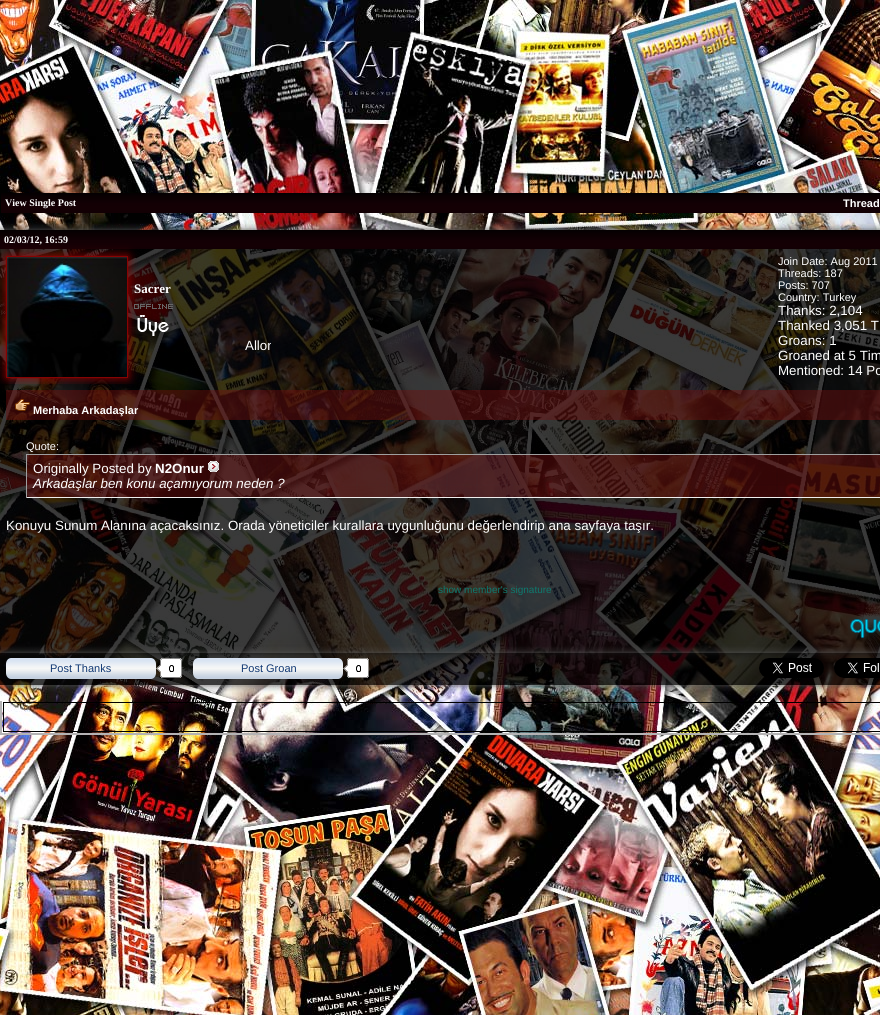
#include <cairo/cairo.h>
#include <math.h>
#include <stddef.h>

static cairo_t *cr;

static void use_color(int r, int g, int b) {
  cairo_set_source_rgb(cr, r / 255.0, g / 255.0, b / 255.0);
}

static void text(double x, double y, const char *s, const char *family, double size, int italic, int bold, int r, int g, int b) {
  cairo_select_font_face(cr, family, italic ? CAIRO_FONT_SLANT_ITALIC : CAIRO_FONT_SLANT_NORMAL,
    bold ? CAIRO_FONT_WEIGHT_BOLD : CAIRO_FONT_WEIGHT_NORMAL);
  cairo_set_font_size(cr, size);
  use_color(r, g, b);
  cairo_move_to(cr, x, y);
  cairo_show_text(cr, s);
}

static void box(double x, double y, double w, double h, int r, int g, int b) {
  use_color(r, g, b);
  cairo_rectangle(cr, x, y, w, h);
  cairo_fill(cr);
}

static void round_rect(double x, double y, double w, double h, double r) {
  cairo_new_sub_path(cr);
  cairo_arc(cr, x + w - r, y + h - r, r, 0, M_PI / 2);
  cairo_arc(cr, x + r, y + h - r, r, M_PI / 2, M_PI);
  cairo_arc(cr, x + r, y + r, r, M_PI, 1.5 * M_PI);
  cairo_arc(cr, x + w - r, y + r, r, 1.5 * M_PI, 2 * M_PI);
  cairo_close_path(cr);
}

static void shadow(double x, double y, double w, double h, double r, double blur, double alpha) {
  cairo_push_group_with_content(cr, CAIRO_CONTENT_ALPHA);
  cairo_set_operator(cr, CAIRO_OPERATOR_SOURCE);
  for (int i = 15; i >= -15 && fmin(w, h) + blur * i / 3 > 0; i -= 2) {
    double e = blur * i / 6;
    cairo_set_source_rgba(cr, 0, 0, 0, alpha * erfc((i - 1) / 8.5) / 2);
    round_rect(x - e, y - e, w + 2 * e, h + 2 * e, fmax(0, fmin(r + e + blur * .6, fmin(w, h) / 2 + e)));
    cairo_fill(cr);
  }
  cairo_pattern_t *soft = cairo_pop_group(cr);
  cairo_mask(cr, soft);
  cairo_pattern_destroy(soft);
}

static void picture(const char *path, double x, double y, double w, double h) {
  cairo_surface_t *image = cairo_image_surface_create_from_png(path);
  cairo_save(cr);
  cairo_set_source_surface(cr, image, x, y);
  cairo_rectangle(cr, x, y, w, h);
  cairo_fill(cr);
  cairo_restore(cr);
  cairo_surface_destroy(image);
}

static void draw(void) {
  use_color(255, 255, 255);
  cairo_paint(cr);
  picture("img_01.png", 0, 0, 880, 1015);
  picture("img_02.png", 1, 193, 879, 20);
  cairo_save(cr);
  cairo_set_fill_rule(cr, CAIRO_FILL_RULE_EVEN_ODD);
  cairo_new_path(cr);
  cairo_move_to(cr, 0, 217);
  cairo_line_to(cr, 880, 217);
  cairo_line_to(cr, 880, 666);
  cairo_line_to(cr, 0, 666);
  cairo_close_path(cr);
  cairo_move_to(cr, 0, 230);
  cairo_line_to(cr, 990, 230);
  cairo_line_to(cr, 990, 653);
  cairo_line_to(cr, 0, 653);
  cairo_close_path(cr);
  cairo_clip(cr);
  use_color(85, 85, 85);
  shadow(0, 230, 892, 423, 0, 4, 1);
  cairo_restore(cr);
  picture("img_03.png", 0, 230, 880, 19);
  cairo_set_source_rgba(cr, 0, 0, 0, 0.77);
  cairo_rectangle(cr, 0, 249, 880, 135);
  cairo_fill(cr);
  use_color(162, 0, 0);
  shadow(6, 256, 122, 122, 0, 5, 1);
  cairo_rectangle(cr, 6.5, 256.5, 121, 121);
  use_color(135, 3, 3);
  cairo_set_line_width(cr, 1);
  cairo_stroke(cr);
  picture("img_04.png", 7, 257, 120, 120);
  picture("img_05.png", 134, 304, 39, 5);
  picture("img_06.png", 137, 315, 32, 21);
  cairo_set_source_rgba(cr, 0, 0, 0, 0.77);
  cairo_rectangle(cr, 0, 384, 880, 269);
  cairo_fill(cr);
  picture("img_07.png", 6, 390, 874, 30);
  picture("img_08.png", 15, 399, 15, 13);
  picture("img_09.png", 27, 455, 853, 42);
  box(26, 454, 854, 1, 159, 159, 159);
  box(26, 497, 854, 1, 238, 238, 238);
  box(26, 454, 1, 44, 159, 159, 159);
  picture("img_10.png", 208, 461, 11, 11);
  picture("img_11.png", 848, 617, 32, 22);
  cairo_save(cr);
  cairo_set_fill_rule(cr, CAIRO_FILL_RULE_EVEN_ODD);
  cairo_new_path(cr);
  cairo_move_to(cr, 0, 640);
  cairo_line_to(cr, 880, 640);
  cairo_line_to(cr, 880, 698);
  cairo_line_to(cr, 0, 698);
  cairo_close_path(cr);
  cairo_move_to(cr, 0, 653);
  cairo_line_to(cr, 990, 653);
  cairo_line_to(cr, 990, 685);
  cairo_line_to(cr, 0, 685);
  cairo_close_path(cr);
  cairo_clip(cr);
  use_color(85, 85, 85);
  shadow(0, 653, 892, 32, 0, 4, 1);
  cairo_restore(cr);
  cairo_set_source_rgba(cr, 0, 0, 0, 0.77);
  cairo_rectangle(cr, 0, 653, 880, 32);
  cairo_fill(cr);
  picture("img_12.png", 6, 658, 150, 21);
  picture("img_13.png", 156, 658, 26, 20);
  picture("img_14.png", 193, 658, 150, 21);
  picture("img_15.png", 343, 658, 26, 20);
  picture("img_16.png", 759, 658, 65, 20);
  picture("img_17.png", 834, 658, 46, 20);
  box(0, 733, 880, 2, 180, 179, 180);
  box(0, 701, 2, 34, 180, 179, 180);
  cairo_rectangle(cr, 3.5, 702.5, 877, 29);
  use_color(0, 0, 0);
  cairo_stroke(cr);
  text(5, 206, "View Single Post", "Liberation Serif", 10, 0, 1, 255, 255, 255);
  text(843, 207, "Thread", "Liberation Sans", 11, 0, 1, 255, 255, 255);
  text(4, 243, "02/03/12, 16:59", "Liberation Serif", 10, 0, 1, 255, 255, 255);
  text(134, 293, "Sacrer", "Liberation Serif", 13, 0, 1, 255, 255, 255);
  cairo_save(cr);
  cairo_rectangle(cr, 134, 338, 137, 15);
  cairo_clip(cr);
  text(245, 350, "Allon", "Liberation Sans", 13.35, 0, 0, 255, 255, 255);
  cairo_restore(cr);
  text(778, 265, "Join Date: Aug 2011", "Liberation Sans", 11, 0, 0, 255, 255, 255);
  text(778, 277, "Threads: 187", "Liberation Sans", 11, 0, 0, 255, 255, 255);
  text(778, 289, "Posts: 707", "Liberation Sans", 11, 0, 0, 255, 255, 255);
  text(778, 301, "Country: Turkey", "Liberation Sans", 11, 0, 0, 255, 255, 255);
  text(778, 315, "Thanks: 2,104", "Liberation Sans", 13.35, 0, 0, 255, 255, 255);
  text(778, 330, "Thanked 3,051 T", "Liberation Sans", 13.35, 0, 0, 255, 255, 255);
  text(778, 345, "Groans: 1", "Liberation Sans", 13.35, 0, 0, 255, 255, 255);
  text(778, 360, "Groaned at 5 Tim", "Liberation Sans", 13.35, 0, 0, 255, 255, 255);
  text(778, 375, "Mentioned: 14 Po", "Liberation Sans", 13.35, 0, 0, 255, 255, 255);
  text(33, 414, "Merhaba Arkadaşlar", "Liberation Sans", 11, 0, 1, 255, 255, 255);
  text(26, 450, "Quote:", "Liberation Sans", 11, 0, 0, 255, 255, 255);
  text(33, 473, "Originally Posted by", "Liberation Sans", 13.35, 0, 0, 255, 255, 255);
  text(155, 473, "N2Onur", "Liberation Sans", 13.35, 0, 1, 255, 255, 255);
  text(33, 488, "Arkadaşlar ben konu açamıyorum neden ?", "Liberation Sans", 13.35, 1, 0, 255, 255, 255);
  text(6, 530, "Konuyu Sunum Alanına açacaksınız. Orada yöneticiler kurallara uygunluğunu değerlendirip ana sayfaya taşır.", "Liberation Sans", 13.35, 0, 0, 255, 255, 255);
  text(438, 593, "show member's signature", "Liberation Sans", 10, 0, 0, 14, 121, 110);
  text(50, 672, "Post Thanks", "Liberation Sans", 11, 0, 0, 16, 56, 116);
  text(241, 672, "Post Groan", "Liberation Sans", 11, 0, 0, 16, 56, 116);
}

int main(void) {
  cairo_surface_t *surface = cairo_image_surface_create(CAIRO_FORMAT_RGB24, 880, 1015);
  cr = cairo_create(surface);
  cairo_font_options_t *options = cairo_font_options_create();
  cairo_font_options_set_hint_metrics(options, CAIRO_HINT_METRICS_OFF);
  cairo_font_options_set_hint_style(options, CAIRO_HINT_STYLE_NONE);
  cairo_set_font_options(cr, options);
  cairo_set_miter_limit(cr, 4);
  draw();
  cairo_surface_write_to_png(surface, "out.png");
  cairo_font_options_destroy(options);
  cairo_destroy(cr);
  cairo_surface_destroy(surface);
  return 0;
}
